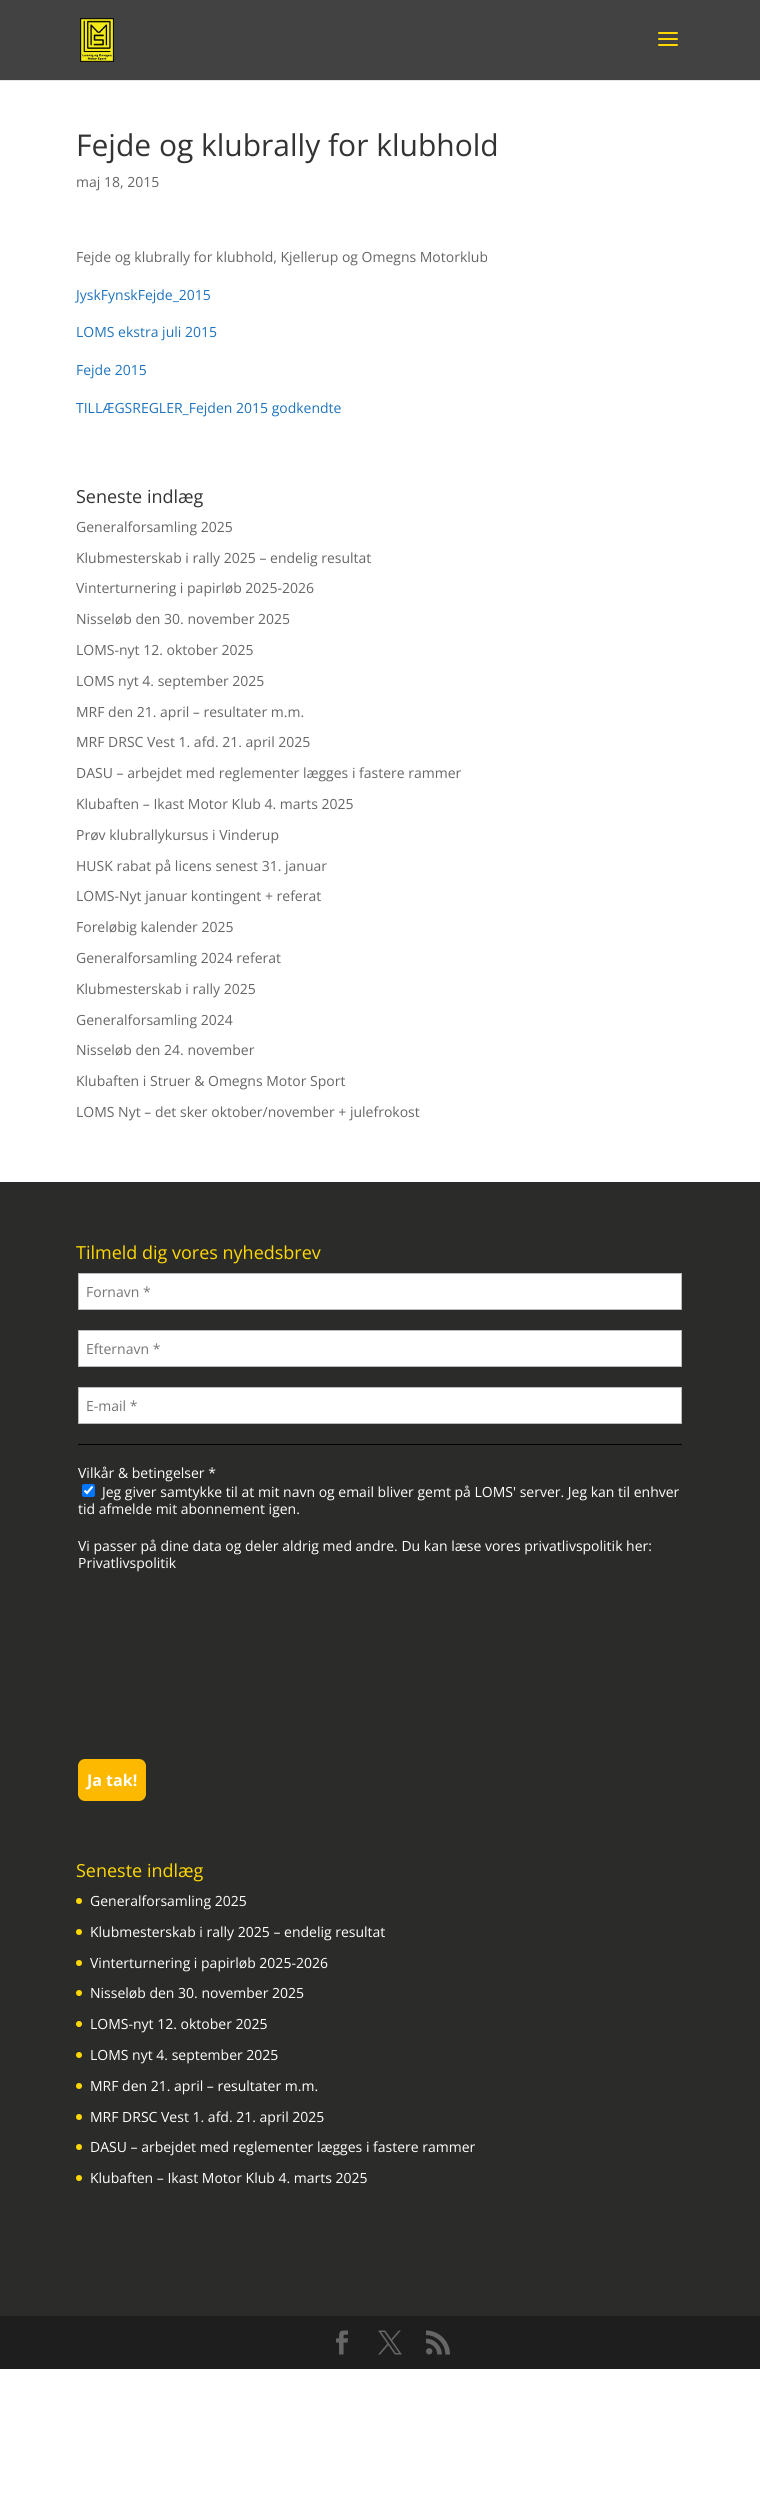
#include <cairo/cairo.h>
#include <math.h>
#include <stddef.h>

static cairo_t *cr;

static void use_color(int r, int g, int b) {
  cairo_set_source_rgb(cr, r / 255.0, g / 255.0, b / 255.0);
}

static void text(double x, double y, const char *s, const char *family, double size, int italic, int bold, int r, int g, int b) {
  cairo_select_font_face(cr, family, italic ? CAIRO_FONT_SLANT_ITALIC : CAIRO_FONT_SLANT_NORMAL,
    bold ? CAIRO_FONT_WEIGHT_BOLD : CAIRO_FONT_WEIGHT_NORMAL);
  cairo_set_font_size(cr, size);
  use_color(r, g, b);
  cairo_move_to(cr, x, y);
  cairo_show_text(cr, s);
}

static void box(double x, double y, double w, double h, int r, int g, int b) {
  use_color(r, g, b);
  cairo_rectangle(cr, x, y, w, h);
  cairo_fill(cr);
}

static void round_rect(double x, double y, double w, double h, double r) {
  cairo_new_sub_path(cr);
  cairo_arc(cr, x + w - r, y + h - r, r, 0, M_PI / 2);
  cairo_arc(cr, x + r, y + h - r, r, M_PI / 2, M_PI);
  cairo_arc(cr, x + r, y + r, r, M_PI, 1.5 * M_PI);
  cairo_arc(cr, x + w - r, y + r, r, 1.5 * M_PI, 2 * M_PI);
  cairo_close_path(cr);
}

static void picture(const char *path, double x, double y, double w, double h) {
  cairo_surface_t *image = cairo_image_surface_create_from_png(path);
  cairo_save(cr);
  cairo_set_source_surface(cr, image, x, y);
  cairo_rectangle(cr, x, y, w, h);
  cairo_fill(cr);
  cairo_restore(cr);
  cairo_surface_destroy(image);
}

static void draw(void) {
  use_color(255, 255, 255);
  cairo_paint(cr);
  box(0, 80, 760, 1, 230, 230, 230);
  box(0, 0, 760, 80, 66, 66, 66);
  picture("img_01.png", 80, 18, 34, 44);
  picture("img_02.png", 658, 32, 20, 14);
  box(0, 1182, 760, 1134, 43, 44, 42);
  use_color(255, 255, 255);
  cairo_rectangle(cr, 78.5, 1273.5, 603, 36);
  cairo_fill_preserve(cr);
  use_color(187, 187, 187);
  cairo_set_line_width(cr, 1);
  cairo_stroke(cr);
  use_color(255, 255, 255);
  cairo_rectangle(cr, 78.5, 1330.5, 603, 36);
  cairo_fill_preserve(cr);
  use_color(187, 187, 187);
  cairo_stroke(cr);
  use_color(255, 255, 255);
  cairo_rectangle(cr, 78.5, 1387.5, 603, 36);
  cairo_fill_preserve(cr);
  use_color(187, 187, 187);
  cairo_stroke(cr);
  box(78, 1444, 604, 1, 0, 0, 0);
  use_color(0, 117, 255);
  round_rect(82, 1484, 13, 13, 2);
  cairo_fill(cr);
  cairo_new_path(cr);
  cairo_move_to(cr, 84.5, 1490.5);
  cairo_line_to(cr, 87, 1493);
  cairo_line_to(cr, 92.5, 1486.5);
  use_color(255, 255, 255);
  cairo_set_line_width(cr, 2.1);
  cairo_stroke(cr);
  use_color(252, 185, 0);
  round_rect(78, 1759, 68, 42, 7);
  cairo_fill(cr);
  use_color(255, 216, 0);
  cairo_arc(cr, 79, 1901, 3, 0, 2 * M_PI);
  cairo_fill(cr);
  cairo_arc(cr, 79, 1932, 3, 0, 2 * M_PI);
  cairo_fill(cr);
  cairo_arc(cr, 79, 1963, 3, 0, 2 * M_PI);
  cairo_fill(cr);
  cairo_arc(cr, 79, 1993, 3, 0, 2 * M_PI);
  cairo_fill(cr);
  cairo_arc(cr, 79, 2024, 3, 0, 2 * M_PI);
  cairo_fill(cr);
  cairo_arc(cr, 79, 2055, 3, 0, 2 * M_PI);
  cairo_fill(cr);
  cairo_arc(cr, 79, 2086, 3, 0, 2 * M_PI);
  cairo_fill(cr);
  cairo_arc(cr, 79, 2117, 3, 0, 2 * M_PI);
  cairo_fill(cr);
  cairo_arc(cr, 79, 2147, 3, 0, 2 * M_PI);
  cairo_fill(cr);
  cairo_arc(cr, 79, 2178, 3, 0, 2 * M_PI);
  cairo_fill(cr);
  box(0, 2316, 760, 53, 29, 30, 29);
  picture("img_03.png", 336, 2330, 12, 25);
  picture("img_04.png", 378, 2330, 24, 25);
  picture("img_05.png", 426, 2330, 24, 25);
  text(76, 156, "Fejde og klubrally for klubhold", "Open Sans", 30, 0, 0, 51, 51, 51);
  text(76, 187, "maj 18, 2015", "Open Sans", 14, 0, 0, 102, 102, 102);
  text(76, 262, "Fejde og klubrally for klubhold, Kjellerup og Omegns Motorklub", "Open Sans", 14, 0, 0, 102, 102, 102);
  text(76, 300, "JyskFynskFejde_2015", "Open Sans", 14, 0, 0, 30, 115, 190);
  text(76, 337, "LOMS ekstra juli 2015", "Open Sans", 14, 0, 0, 30, 115, 190);
  text(76, 375, "Fejde 2015", "Open Sans", 14, 0, 0, 30, 115, 190);
  text(76, 413, "TILLÆGSREGLER_Fejden 2015 godkendte", "Open Sans", 14, 0, 0, 30, 115, 190);
  text(76, 503, "Seneste indlæg", "Open Sans", 18, 0, 0, 51, 51, 51);
  text(76, 532, "Generalforsamling 2025", "Open Sans", 14, 0, 0, 102, 102, 102);
  text(76, 563, "Klubmesterskab i rally 2025 – endelig resultat", "Open Sans", 14, 0, 0, 102, 102, 102);
  text(76, 593, "Vinterturnering i papirløb 2025-2026", "Open Sans", 14, 0, 0, 102, 102, 102);
  text(76, 624, "Nisseløb den 30. november 2025", "Open Sans", 14, 0, 0, 102, 102, 102);
  text(76, 655, "LOMS-nyt 12. oktober 2025", "Open Sans", 14, 0, 0, 102, 102, 102);
  text(76, 686, "LOMS nyt 4. september 2025", "Open Sans", 14, 0, 0, 102, 102, 102);
  text(76, 717, "MRF den 21. april – resultater m.m.", "Open Sans", 14, 0, 0, 102, 102, 102);
  text(76, 747, "MRF DRSC Vest 1. afd. 21. april 2025", "Open Sans", 14, 0, 0, 102, 102, 102);
  text(76, 778, "DASU – arbejdet med reglementer lægges i fastere rammer", "Open Sans", 14, 0, 0, 102, 102, 102);
  text(76, 809, "Klubaften – Ikast Motor Klub 4. marts 2025", "Open Sans", 14, 0, 0, 102, 102, 102);
  text(76, 840, "Prøv klubrallykursus i Vinderup", "Open Sans", 14, 0, 0, 102, 102, 102);
  text(76, 871, "HUSK rabat på licens senest 31. januar", "Open Sans", 14, 0, 0, 102, 102, 102);
  text(76, 901, "LOMS-Nyt januar kontingent + referat", "Open Sans", 14, 0, 0, 102, 102, 102);
  text(76, 932, "Foreløbig kalender 2025", "Open Sans", 14, 0, 0, 102, 102, 102);
  text(76, 963, "Generalforsamling 2024 referat", "Open Sans", 14, 0, 0, 102, 102, 102);
  text(76, 994, "Klubmesterskab i rally 2025", "Open Sans", 14, 0, 0, 102, 102, 102);
  text(76, 1025, "Generalforsamling 2024", "Open Sans", 14, 0, 0, 102, 102, 102);
  text(76, 1055, "Nisseløb den 24. november", "Open Sans", 14, 0, 0, 102, 102, 102);
  text(76, 1086, "Klubaften i Struer & Omegns Motor Sport", "Open Sans", 14, 0, 0, 102, 102, 102);
  text(76, 1117, "LOMS Nyt – det sker oktober/november + julefrokost", "Open Sans", 14, 0, 0, 102, 102, 102);
  text(76, 1259, "Tilmeld dig vores nyhedsbrev", "Open Sans", 18, 0, 0, 255, 216, 0);
  text(86, 1297, "Fornavn *", "Open Sans", 14, 0, 0, 117, 117, 117);
  text(86, 1354, "Efternavn *", "Open Sans", 14, 0, 0, 117, 117, 117);
  text(86, 1411, "E-mail *", "Open Sans", 14, 0, 0, 117, 117, 117);
  text(78, 1478, "Vilkår & betingelser *", "Open Sans", 14, 0, 0, 255, 255, 255);
  text(102, 1497, "Jeg giver samtykke til at mit navn og email bliver gemt på LOMS' server. Jeg kan til enhver", "Open Sans", 14, 0, 0, 255, 255, 255);
  text(78, 1514, "tid afmelde mit abonnement igen.", "Open Sans", 14, 0, 0, 255, 255, 255);
  text(78, 1551, "Vi passer på dine data og deler aldrig med andre. Du kan læse vores privatlivspolitik her:", "Open Sans", 14, 0, 0, 255, 255, 255);
  text(78, 1568, "Privatlivspolitik", "Open Sans", 14, 0, 0, 255, 255, 255);
  text(87, 1786, "Ja tak!", "Open Sans", 16, 0, 1, 255, 255, 255);
  text(76, 1877, "Seneste indlæg", "Open Sans", 18, 0, 0, 255, 216, 0);
  text(90, 1906, "Generalforsamling 2025", "Open Sans", 14, 0, 0, 255, 255, 255);
  text(90, 1937, "Klubmesterskab i rally 2025 – endelig resultat", "Open Sans", 14, 0, 0, 255, 255, 255);
  text(90, 1968, "Vinterturnering i papirløb 2025-2026", "Open Sans", 14, 0, 0, 255, 255, 255);
  text(90, 1998, "Nisseløb den 30. november 2025", "Open Sans", 14, 0, 0, 255, 255, 255);
  text(90, 2029, "LOMS-nyt 12. oktober 2025", "Open Sans", 14, 0, 0, 255, 255, 255);
  text(90, 2060, "LOMS nyt 4. september 2025", "Open Sans", 14, 0, 0, 255, 255, 255);
  text(90, 2091, "MRF den 21. april – resultater m.m.", "Open Sans", 14, 0, 0, 255, 255, 255);
  text(90, 2122, "MRF DRSC Vest 1. afd. 21. april 2025", "Open Sans", 14, 0, 0, 255, 255, 255);
  text(90, 2152, "DASU – arbejdet med reglementer lægges i fastere rammer", "Open Sans", 14, 0, 0, 255, 255, 255);
  text(90, 2183, "Klubaften – Ikast Motor Klub 4. marts 2025", "Open Sans", 14, 0, 0, 255, 255, 255);
}

int main(void) {
  cairo_surface_t *surface = cairo_image_surface_create(CAIRO_FORMAT_RGB24, 760, 2495);
  cr = cairo_create(surface);
  cairo_font_options_t *options = cairo_font_options_create();
  cairo_font_options_set_hint_metrics(options, CAIRO_HINT_METRICS_OFF);
  cairo_font_options_set_hint_style(options, CAIRO_HINT_STYLE_NONE);
  cairo_set_font_options(cr, options);
  cairo_set_miter_limit(cr, 4);
  draw();
  cairo_surface_write_to_png(surface, "out.png");
  cairo_font_options_destroy(options);
  cairo_destroy(cr);
  cairo_surface_destroy(surface);
  return 0;
}
